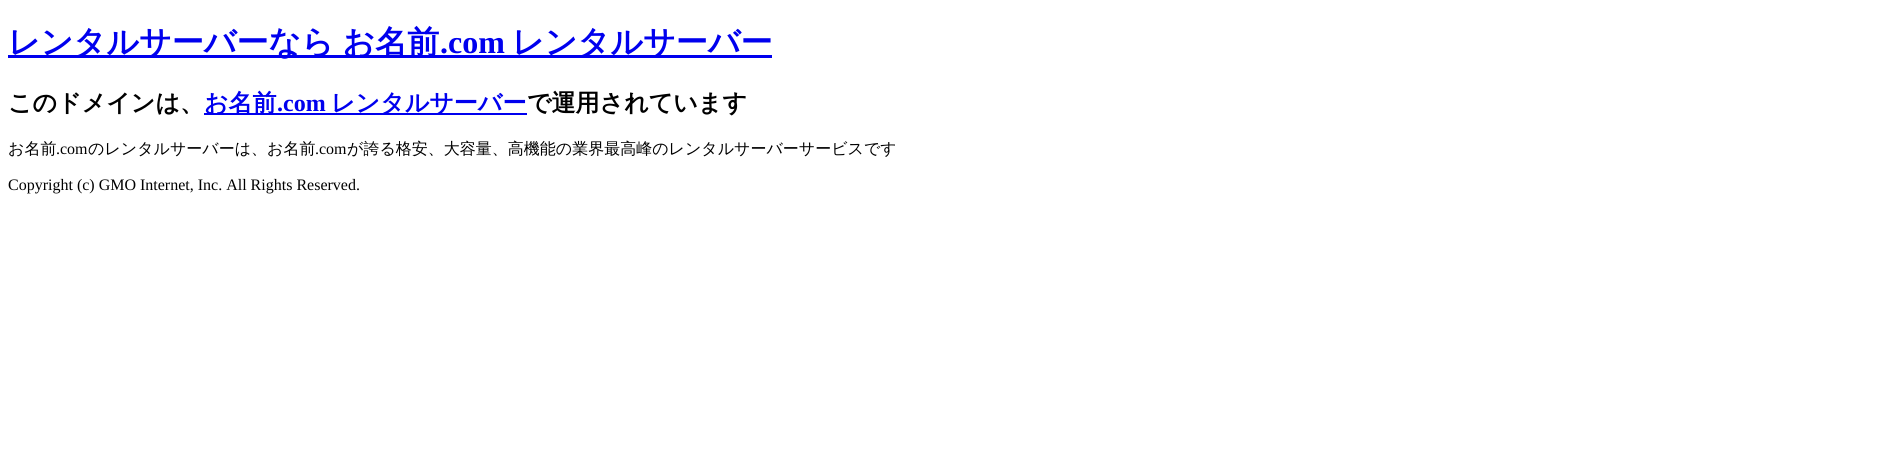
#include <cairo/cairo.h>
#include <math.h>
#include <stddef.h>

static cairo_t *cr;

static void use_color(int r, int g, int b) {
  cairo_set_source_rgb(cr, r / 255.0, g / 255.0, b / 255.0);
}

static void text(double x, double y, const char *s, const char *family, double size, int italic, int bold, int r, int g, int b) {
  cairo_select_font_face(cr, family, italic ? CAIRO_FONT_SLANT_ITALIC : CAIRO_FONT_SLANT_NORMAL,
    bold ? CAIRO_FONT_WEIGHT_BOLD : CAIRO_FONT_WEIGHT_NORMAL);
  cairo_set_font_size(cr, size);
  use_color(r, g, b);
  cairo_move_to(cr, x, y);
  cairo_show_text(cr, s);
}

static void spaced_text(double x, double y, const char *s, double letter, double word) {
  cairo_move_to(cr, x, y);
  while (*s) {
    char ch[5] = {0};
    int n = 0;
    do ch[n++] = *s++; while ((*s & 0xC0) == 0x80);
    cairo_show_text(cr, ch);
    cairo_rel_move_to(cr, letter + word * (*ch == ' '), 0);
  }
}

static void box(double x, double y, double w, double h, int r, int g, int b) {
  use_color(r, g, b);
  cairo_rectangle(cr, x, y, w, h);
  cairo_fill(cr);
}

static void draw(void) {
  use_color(255, 255, 255);
  cairo_paint(cr);
  box(8, 55, 764, 3, 0, 0, 238);
  box(204, 113, 323, 2, 0, 0, 238);
  cairo_select_font_face(cr, "WenQuanYi Zen Hei", CAIRO_FONT_SLANT_NORMAL, CAIRO_FONT_WEIGHT_BOLD);
  cairo_set_font_size(cr, 32);
  spaced_text(8, 53, "レンタルサーバーなら お名前", 0, -1);
  text(440, 53, ".com", "Liberation Serif", 32, 0, 1, 0, 0, 238);
  text(512, 53, "レンタルサーバー", "WenQuanYi Zen Hei", 32, 0, 1, 0, 0, 238);
  text(8, 111, "このドメインは、", "WenQuanYi Zen Hei", 24, 0, 1, 0, 0, 0);
  text(204, 111, "お名前", "WenQuanYi Zen Hei", 24, 0, 1, 0, 0, 238);
  text(277, 111, ".com", "Liberation Serif", 24, 0, 1, 0, 0, 238);
  text(331, 111, "レンタルサーバー", "WenQuanYi Zen Hei", 24, 0, 1, 0, 0, 238);
  text(527, 111, "で運用されています", "WenQuanYi Zen Hei", 24, 0, 1, 0, 0, 0);
  text(8, 154, "お名前", "WenQuanYi Zen Hei Medium", 16, 0, 0, 0, 0, 0);
  text(56, 154, ".com", "Liberation Serif", 16, 0, 0, 0, 0, 0);
  text(88, 154, "のレンタルサーバーは、お名前", "WenQuanYi Zen Hei Medium", 16, 0, 0, 0, 0, 0);
  text(315, 154, ".com", "Liberation Serif", 16, 0, 0, 0, 0, 0);
  text(347, 154, "が誇る格安、大容量、高機能の業界最高峰のレンタルサーバーサービスです", "WenQuanYi Zen Hei Medium", 16, 0, 0, 0, 0, 0);
  text(8, 190, "Copyright (c) GMO Internet, Inc. All Rights Reserved.", "Liberation Serif", 16, 0, 0, 0, 0, 0);
}

int main(void) {
  cairo_surface_t *surface = cairo_image_surface_create(CAIRO_FORMAT_RGB24, 1887, 467);
  cr = cairo_create(surface);
  cairo_font_options_t *options = cairo_font_options_create();
  cairo_font_options_set_hint_metrics(options, CAIRO_HINT_METRICS_OFF);
  cairo_font_options_set_hint_style(options, CAIRO_HINT_STYLE_NONE);
  cairo_set_font_options(cr, options);
  cairo_set_miter_limit(cr, 4);
  draw();
  cairo_surface_write_to_png(surface, "out.png");
  cairo_font_options_destroy(options);
  cairo_destroy(cr);
  cairo_surface_destroy(surface);
  return 0;
}
